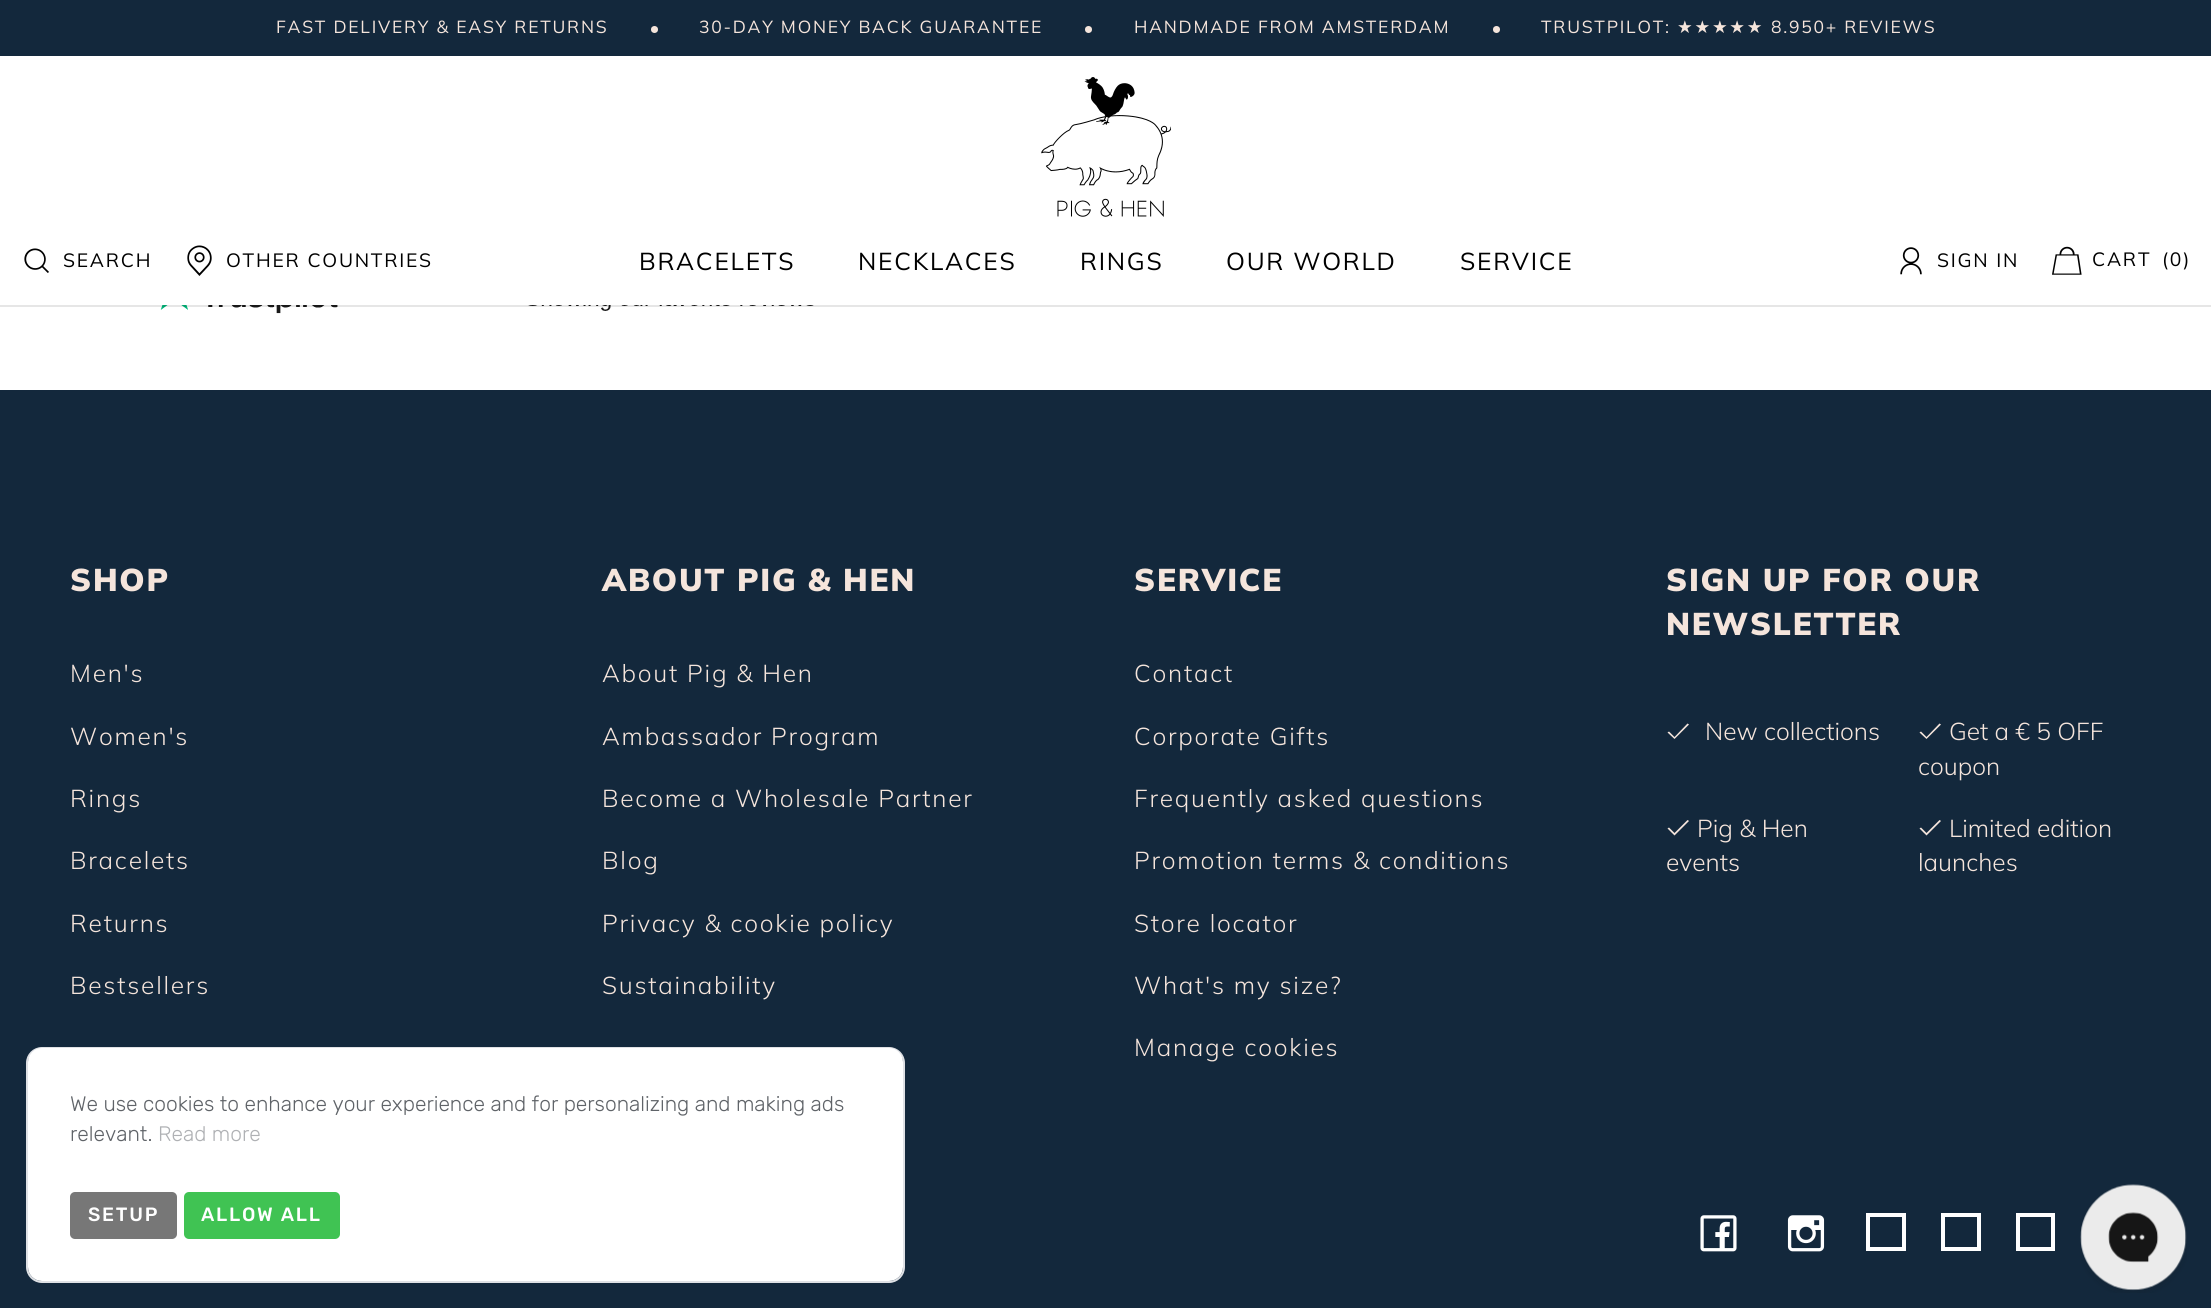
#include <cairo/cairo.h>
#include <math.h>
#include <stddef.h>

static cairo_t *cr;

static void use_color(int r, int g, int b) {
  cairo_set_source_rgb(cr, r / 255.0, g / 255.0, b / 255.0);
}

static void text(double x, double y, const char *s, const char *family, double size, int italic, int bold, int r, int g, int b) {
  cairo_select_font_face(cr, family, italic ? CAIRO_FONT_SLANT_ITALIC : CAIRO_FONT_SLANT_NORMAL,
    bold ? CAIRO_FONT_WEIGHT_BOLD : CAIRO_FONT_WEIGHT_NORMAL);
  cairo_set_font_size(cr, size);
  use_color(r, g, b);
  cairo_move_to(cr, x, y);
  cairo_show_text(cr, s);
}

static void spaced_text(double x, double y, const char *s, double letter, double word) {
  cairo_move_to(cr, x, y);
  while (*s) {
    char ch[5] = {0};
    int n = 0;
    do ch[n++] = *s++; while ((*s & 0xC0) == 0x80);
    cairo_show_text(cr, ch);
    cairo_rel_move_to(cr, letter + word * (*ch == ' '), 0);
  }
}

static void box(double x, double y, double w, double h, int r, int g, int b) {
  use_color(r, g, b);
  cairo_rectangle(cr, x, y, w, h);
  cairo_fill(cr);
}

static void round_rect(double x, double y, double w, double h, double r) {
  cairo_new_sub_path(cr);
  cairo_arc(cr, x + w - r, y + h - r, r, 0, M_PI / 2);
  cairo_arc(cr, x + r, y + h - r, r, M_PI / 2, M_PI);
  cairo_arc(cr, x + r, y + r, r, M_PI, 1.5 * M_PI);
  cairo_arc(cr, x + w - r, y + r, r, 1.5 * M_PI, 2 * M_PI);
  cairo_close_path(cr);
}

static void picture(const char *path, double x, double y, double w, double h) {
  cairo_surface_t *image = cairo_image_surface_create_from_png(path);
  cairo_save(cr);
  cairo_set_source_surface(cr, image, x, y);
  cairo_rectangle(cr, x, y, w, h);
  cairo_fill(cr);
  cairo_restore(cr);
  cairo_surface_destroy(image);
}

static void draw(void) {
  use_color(255, 255, 255);
  cairo_paint(cr);
  box(0, 0, 2211, 56, 19, 40, 60);
  use_color(245, 229, 220);
  cairo_arc(cr, 654.5, 29.5, 3.5, 0, 2 * M_PI);
  cairo_fill(cr);
  cairo_arc(cr, 1088.5, 29.5, 3.5, 0, 2 * M_PI);
  cairo_fill(cr);
  cairo_arc(cr, 1496.5, 29.5, 3.5, 0, 2 * M_PI);
  cairo_fill(cr);
  picture("img_01.png", 1041, 77, 130, 140);
  picture("img_02.png", 24, 248, 25, 25);
  picture("img_03.png", 187, 245, 25, 31);
  picture("img_04.png", 1900, 247, 22, 28);
  picture("img_05.png", 2052, 246, 30, 29);
  picture("img_06.png", 160, 305, 654, 9);
  cairo_set_source_rgba(cr, 0, 0, 0, 0.1);
  cairo_rectangle(cr, 0, 305, 2211, 2);
  cairo_fill(cr);
  box(0, 390, 2211, 918, 19, 40, 60);
  use_color(245, 229, 220);
  cairo_new_path(cr);
  cairo_move_to(cr, 1687.5, 723.5);
  cairo_line_to(cr, 1689, 724.5);
  cairo_line_to(cr, 1674.5, 739);
  cairo_line_to(cr, 1667.5, 732.5);
  cairo_line_to(cr, 1669, 731.5);
  cairo_line_to(cr, 1674.5, 737);
  cairo_close_path(cr);
  cairo_fill(cr);
  cairo_new_path(cr);
  cairo_move_to(cr, 1939.5, 723.5);
  cairo_line_to(cr, 1941, 724.5);
  cairo_line_to(cr, 1926.5, 739);
  cairo_line_to(cr, 1919.5, 732.5);
  cairo_line_to(cr, 1921, 731.5);
  cairo_line_to(cr, 1926.5, 737);
  cairo_close_path(cr);
  cairo_fill(cr);
  cairo_new_path(cr);
  cairo_move_to(cr, 1687.5, 820);
  cairo_line_to(cr, 1689, 821);
  cairo_line_to(cr, 1674.5, 835.5);
  cairo_line_to(cr, 1667.5, 828.5);
  cairo_line_to(cr, 1669, 827.5);
  cairo_line_to(cr, 1674.5, 833);
  cairo_close_path(cr);
  cairo_fill(cr);
  cairo_new_path(cr);
  cairo_move_to(cr, 1939.5, 820);
  cairo_line_to(cr, 1941, 821);
  cairo_line_to(cr, 1926.5, 835.5);
  cairo_line_to(cr, 1919.5, 828.5);
  cairo_line_to(cr, 1921, 827.5);
  cairo_line_to(cr, 1926.5, 833);
  cairo_close_path(cr);
  cairo_fill(cr);
  picture("img_07.png", 1700, 1215, 37, 37);
  picture("img_08.png", 1787, 1215, 38, 37);
  cairo_rectangle(cr, 1868, 1215, 36, 34);
  use_color(255, 255, 255);
  cairo_set_line_width(cr, 4);
  cairo_stroke(cr);
  cairo_rectangle(cr, 1943, 1215, 36, 34);
  cairo_stroke(cr);
  cairo_rectangle(cr, 2018, 1215, 35, 34);
  cairo_stroke(cr);
  round_rect(27, 1048, 877, 234, 15);
  use_color(223, 225, 229);
  cairo_set_line_width(cr, 2);
  cairo_stroke(cr);
  use_color(255, 255, 255);
  round_rect(28, 1048, 875, 233, 14);
  cairo_fill(cr);
  use_color(119, 119, 119);
  round_rect(70, 1192, 107, 47, 5);
  cairo_fill(cr);
  use_color(64, 195, 83);
  round_rect(184, 1192, 156, 47, 5);
  cairo_fill(cr);
  picture("img_09.png", 2080, 1184, 107, 109);
  cairo_select_font_face(cr, "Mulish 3 ExtraLight", CAIRO_FONT_SLANT_NORMAL, CAIRO_FONT_WEIGHT_NORMAL);
  cairo_set_font_size(cr, 17.5);
  use_color(245, 229, 220);
  spaced_text(276, 33, "FAST DELIVERY & EASY RETURNS", 1.75, 0);
  spaced_text(699, 33, "30-DAY MONEY BACK GUARANTEE", 1.75, 0);
  spaced_text(1134, 33, "HANDMADE FROM AMSTERDAM", 1.75, 0);
  spaced_text(1541, 33, "TRUSTPILOT:", 1.75, 0);
  cairo_select_font_face(cr, "DejaVu Sans", CAIRO_FONT_SLANT_NORMAL, CAIRO_FONT_WEIGHT_NORMAL);
  spaced_text(1677, 33, "★★★★★", 1.75, 0);
  cairo_select_font_face(cr, "Mulish 3 ExtraLight", CAIRO_FONT_SLANT_NORMAL, CAIRO_FONT_WEIGHT_NORMAL);
  spaced_text(1771, 33, "8.950+ REVIEWS", 1.75, 0);
  cairo_set_font_size(cr, 19.25);
  use_color(0, 0, 0);
  spaced_text(63, 267, "SEARCH", 1.75, 0);
  spaced_text(226, 267, "OTHER COUNTRIES", 1.75, 0);
  cairo_set_font_size(cr, 24.5);
  spaced_text(639, 270, "BRACELETS", 1.75, 0);
  spaced_text(858, 270, "NECKLACES", 1.75, 0);
  spaced_text(1080, 270, "RINGS", 1.75, 0);
  spaced_text(1226, 270, "OUR WORLD", 1.75, 0);
  spaced_text(1460, 270, "SERVICE", 1.75, 0);
  cairo_set_font_size(cr, 19.25);
  spaced_text(1937, 267, "SIGN IN", 1.75, 0);
  spaced_text(2092, 266, "CART", 1.75, 0);
  spaced_text(2162, 266, "(0)", 1.75, 0);
  cairo_select_font_face(cr, "Mulish ExtraLight", CAIRO_FONT_SLANT_NORMAL, CAIRO_FONT_WEIGHT_NORMAL);
  cairo_set_font_size(cr, 31.5);
  use_color(245, 229, 220);
  spaced_text(70, 591, "SHOP", 1.75, 0);
  cairo_select_font_face(cr, "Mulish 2 ExtraLight", CAIRO_FONT_SLANT_NORMAL, CAIRO_FONT_WEIGHT_NORMAL);
  cairo_set_font_size(cr, 24.5);
  spaced_text(70, 682, "Men's", 1.75, 0);
  spaced_text(70, 745, "Women's", 1.75, 0);
  spaced_text(70, 807, "Rings", 1.75, 0);
  spaced_text(70, 869, "Bracelets", 1.75, 0);
  spaced_text(70, 932, "Returns", 1.75, 0);
  spaced_text(70, 994, "Bestsellers", 1.75, 0);
  cairo_select_font_face(cr, "Mulish ExtraLight", CAIRO_FONT_SLANT_NORMAL, CAIRO_FONT_WEIGHT_NORMAL);
  cairo_set_font_size(cr, 31.5);
  spaced_text(602, 591, "ABOUT PIG & HEN", 1.75, 0);
  cairo_select_font_face(cr, "Mulish 2 ExtraLight", CAIRO_FONT_SLANT_NORMAL, CAIRO_FONT_WEIGHT_NORMAL);
  cairo_set_font_size(cr, 24.5);
  spaced_text(602, 682, "About Pig & Hen", 1.75, 0);
  spaced_text(602, 745, "Ambassador Program", 1.75, 0);
  spaced_text(602, 807, "Become a Wholesale Partner", 1.75, 0);
  spaced_text(602, 869, "Blog", 1.75, 0);
  spaced_text(602, 932, "Privacy & cookie policy", 1.75, 0);
  spaced_text(602, 994, "Sustainability", 1.75, 0);
  cairo_select_font_face(cr, "Mulish ExtraLight", CAIRO_FONT_SLANT_NORMAL, CAIRO_FONT_WEIGHT_NORMAL);
  cairo_set_font_size(cr, 31.5);
  spaced_text(1134, 591, "SERVICE", 1.75, 0);
  cairo_select_font_face(cr, "Mulish 2 ExtraLight", CAIRO_FONT_SLANT_NORMAL, CAIRO_FONT_WEIGHT_NORMAL);
  cairo_set_font_size(cr, 24.5);
  spaced_text(1134, 682, "Contact", 1.75, 0);
  spaced_text(1134, 745, "Corporate Gifts", 1.75, 0);
  spaced_text(1134, 807, "Frequently asked questions", 1.75, 0);
  spaced_text(1134, 869, "Promotion terms & conditions", 1.75, 0);
  spaced_text(1134, 932, "Store locator", 1.75, 0);
  spaced_text(1134, 994, "What's my size?", 1.75, 0);
  spaced_text(1134, 1056, "Manage cookies", 1.75, 0);
  cairo_select_font_face(cr, "Mulish ExtraLight", CAIRO_FONT_SLANT_NORMAL, CAIRO_FONT_WEIGHT_NORMAL);
  cairo_set_font_size(cr, 31.5);
  spaced_text(1666, 591, "SIGN UP FOR OUR", 1.75, 0);
  spaced_text(1666, 635, "NEWSLETTER", 1.75, 0);
  text(1705, 740, "New collections", "Mulish 2 ExtraLight", 24.5, 0, 0, 245, 229, 220);
  text(1949, 740, "Get a € 5 OFF", "Mulish 2 ExtraLight", 24.5, 0, 0, 245, 229, 220);
  text(1918, 775, "coupon", "Mulish 2 ExtraLight", 24.5, 0, 0, 245, 229, 220);
  text(1697, 837, "Pig & Hen", "Mulish 2 ExtraLight", 24.5, 0, 0, 245, 229, 220);
  text(1666, 871, "events", "Mulish 2 ExtraLight", 24.5, 0, 0, 245, 229, 220);
  text(1949, 837, "Limited edition", "Mulish 2 ExtraLight", 24.5, 0, 0, 245, 229, 220);
  text(1918, 871, "launches", "Mulish 2 ExtraLight", 24.5, 0, 0, 245, 229, 220);
  text(70, 1111, "We use cookies to enhance your experience and for personalizing and making ads", "Rubik Light", 21, 0, 0, 95, 99, 104);
  text(70, 1141, "relevant.", "Rubik Light", 21, 0, 0, 95, 99, 104);
  text(158, 1141, "Read more", "Rubik Light", 21, 0, 0, 175, 177, 180);
  cairo_select_font_face(cr, "Rubik Medium", CAIRO_FONT_SLANT_NORMAL, CAIRO_FONT_WEIGHT_NORMAL);
  cairo_set_font_size(cr, 19.25);
  use_color(255, 255, 255);
  spaced_text(88, 1221, "SETUP", 1.75, 0);
  spaced_text(201, 1221, "ALLOW ALL", 1.75, 0);
}

int main(void) {
  cairo_surface_t *surface = cairo_image_surface_create(CAIRO_FORMAT_RGB24, 2211, 1308);
  cr = cairo_create(surface);
  cairo_font_options_t *options = cairo_font_options_create();
  cairo_font_options_set_hint_metrics(options, CAIRO_HINT_METRICS_OFF);
  cairo_font_options_set_hint_style(options, CAIRO_HINT_STYLE_NONE);
  cairo_set_font_options(cr, options);
  cairo_set_miter_limit(cr, 4);
  draw();
  cairo_surface_write_to_png(surface, "out.png");
  cairo_font_options_destroy(options);
  cairo_destroy(cr);
  cairo_surface_destroy(surface);
  return 0;
}
